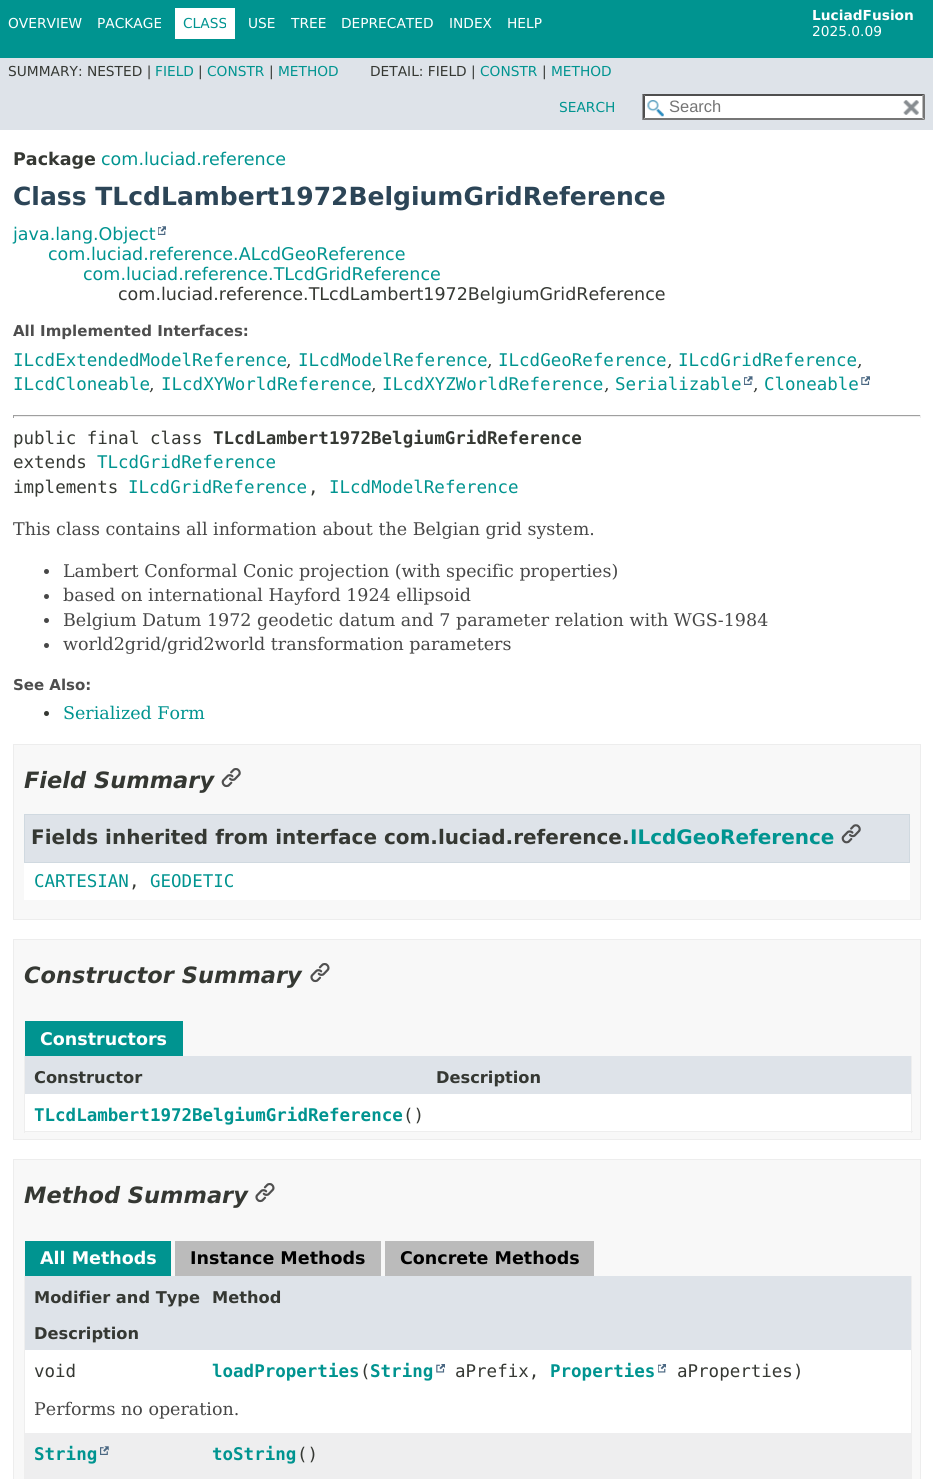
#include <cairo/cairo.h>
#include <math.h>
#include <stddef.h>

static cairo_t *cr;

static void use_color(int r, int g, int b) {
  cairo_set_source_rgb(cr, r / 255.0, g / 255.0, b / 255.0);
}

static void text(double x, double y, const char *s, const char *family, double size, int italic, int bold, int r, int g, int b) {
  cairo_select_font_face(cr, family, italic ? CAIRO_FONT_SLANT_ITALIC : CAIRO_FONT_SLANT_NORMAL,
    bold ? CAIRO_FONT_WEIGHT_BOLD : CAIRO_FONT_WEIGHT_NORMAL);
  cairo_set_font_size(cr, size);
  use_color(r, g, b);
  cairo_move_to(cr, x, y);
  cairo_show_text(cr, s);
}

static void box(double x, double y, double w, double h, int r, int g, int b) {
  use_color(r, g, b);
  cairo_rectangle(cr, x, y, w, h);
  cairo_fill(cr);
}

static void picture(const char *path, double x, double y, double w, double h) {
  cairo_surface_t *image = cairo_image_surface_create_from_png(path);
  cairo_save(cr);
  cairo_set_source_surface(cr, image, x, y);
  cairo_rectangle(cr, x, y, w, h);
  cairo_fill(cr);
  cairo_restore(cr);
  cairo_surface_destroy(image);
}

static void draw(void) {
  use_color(255, 255, 255);
  cairo_paint(cr);
  box(0, 0, 933, 58, 0, 148, 144);
  box(175, 8, 60, 31, 255, 255, 255);
  box(0, 58, 933, 72, 222, 227, 233);
  box(643, 94, 282, 26, 255, 255, 255);
  picture("img_01.png", 647, 100, 17, 17);
  use_color(79, 79, 79);
  cairo_new_path(cr);
  cairo_move_to(cr, 642, 94);
  cairo_line_to(cr, 925, 94);
  cairo_line_to(cr, 922, 96);
  cairo_line_to(cr, 645, 96);
  cairo_close_path(cr);
  cairo_fill(cr);
  use_color(118, 118, 118);
  cairo_new_path(cr);
  cairo_move_to(cr, 925, 94);
  cairo_line_to(cr, 925, 120);
  cairo_line_to(cr, 922.5, 117.5);
  cairo_line_to(cr, 922.5, 96);
  cairo_close_path(cr);
  cairo_fill(cr);
  cairo_new_path(cr);
  cairo_move_to(cr, 925, 120);
  cairo_line_to(cr, 642, 120);
  cairo_line_to(cr, 645, 118);
  cairo_line_to(cr, 922, 118);
  cairo_close_path(cr);
  cairo_fill(cr);
  use_color(79, 79, 79);
  cairo_new_path(cr);
  cairo_move_to(cr, 642.5, 120);
  cairo_line_to(cr, 642.5, 94);
  cairo_line_to(cr, 645, 96);
  cairo_line_to(cr, 645, 117.5);
  cairo_close_path(cr);
  cairo_fill(cr);
  picture("img_02.png", 903, 100, 16, 15);
  picture("img_03.png", 158, 226, 8, 9);
  picture("img_04.png", 744, 376, 9, 9);
  picture("img_05.png", 861, 376, 9, 9);
  box(13, 415, 908, 1, 159, 159, 159);
  box(920, 415, 1, 3, 238, 238, 238);
  box(13, 416, 908, 1, 238, 238, 238);
  box(13, 415, 1, 3, 159, 159, 159);
  use_color(71, 71, 71);
  cairo_arc(cr, 46.5, 571.5, 2.5, 0, 2 * M_PI);
  cairo_fill(cr);
  cairo_arc(cr, 46.5, 596.5, 2.5, 0, 2 * M_PI);
  cairo_fill(cr);
  cairo_arc(cr, 46.5, 620.5, 2.5, 0, 2 * M_PI);
  cairo_fill(cr);
  cairo_arc(cr, 46.5, 645.5, 2.5, 0, 2 * M_PI);
  cairo_fill(cr);
  use_color(53, 56, 51);
  cairo_arc(cr, 46.5, 713.5, 2.5, 0, 2 * M_PI);
  cairo_fill(cr);
  use_color(248, 248, 248);
  cairo_rectangle(cr, 13.5, 744.5, 907, 175);
  cairo_fill_preserve(cr);
  use_color(237, 237, 237);
  cairo_set_line_width(cr, 1);
  cairo_stroke(cr);
  picture("img_06.png", 221, 768, 20, 20);
  box(24, 863, 886, 37, 255, 255, 255);
  use_color(222, 227, 233);
  cairo_rectangle(cr, 24.5, 814.5, 885, 48);
  cairo_fill_preserve(cr);
  use_color(208, 217, 224);
  cairo_stroke(cr);
  picture("img_07.png", 841, 824, 20, 20);
  use_color(248, 248, 248);
  cairo_rectangle(cr, 13.5, 939.5, 907, 200);
  cairo_fill_preserve(cr);
  use_color(237, 237, 237);
  cairo_stroke(cr);
  picture("img_08.png", 310, 963, 20, 20);
  box(25, 1021, 158, 35, 0, 148, 144);
  box(911, 1056, 1, 77, 238, 238, 238);
  box(24, 1131, 889, 1, 238, 238, 238);
  box(24, 1056, 1, 77, 238, 238, 238);
  box(25, 1056, 886, 38, 222, 227, 233);
  box(25, 1094, 886, 37, 255, 255, 255);
  use_color(248, 248, 248);
  cairo_rectangle(cr, 13.5, 1159.5, 907, 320);
  cairo_fill_preserve(cr);
  use_color(237, 237, 237);
  cairo_stroke(cr);
  picture("img_08.png", 255, 1183, 20, 20);
  box(25, 1241, 146, 35, 0, 148, 144);
  box(175, 1241, 206, 35, 187, 187, 187);
  box(385, 1241, 209, 35, 187, 187, 187);
  box(911, 1276, 1, 203, 238, 238, 238);
  box(24, 1276, 1, 203, 238, 238, 238);
  box(25, 1276, 886, 38, 222, 227, 233);
  box(25, 1314, 886, 36, 222, 227, 233);
  box(25, 1350, 886, 38, 255, 255, 255);
  picture("img_09.png", 658, 1364, 8, 9);
  picture("img_10.png", 436, 1364, 9, 9);
  box(25, 1388, 886, 45, 255, 255, 255);
  box(25, 1433, 886, 38, 238, 238, 239);
  picture("img_11.png", 100, 1446, 9, 9);
  box(25, 1471, 886, 8, 238, 238, 239);
  text(8, 28, "OVERVIEW", "DejaVu Sans", 13.75, 0, 0, 255, 255, 255);
  text(97, 28, "PACKAGE", "DejaVu Sans", 13.75, 0, 0, 255, 255, 255);
  text(183, 28, "CLASS", "DejaVu Sans", 13.75, 0, 0, 0, 148, 144);
  text(248, 28, "USE", "DejaVu Sans", 13.75, 0, 0, 255, 255, 255);
  text(291, 28, "TREE", "DejaVu Sans", 13.75, 0, 0, 255, 255, 255);
  text(341, 28, "DEPRECATED", "DejaVu Sans", 13.75, 0, 0, 255, 255, 255);
  text(449, 28, "INDEX", "DejaVu Sans", 13.75, 0, 0, 255, 255, 255);
  text(507, 28, "HELP", "DejaVu Sans", 13.75, 0, 0, 255, 255, 255);
  text(812, 20, "LuciadFusion", "DejaVu Sans", 13.75, 0, 1, 255, 255, 255);
  text(812, 36, "2025.0.09", "DejaVu Sans", 13.75, 0, 0, 255, 255, 255);
  text(8, 76, "SUMMARY: NESTED |", "DejaVu Sans", 13.75, 0, 0, 53, 56, 51);
  text(155, 76, "FIELD", "DejaVu Sans", 13.75, 0, 0, 0, 148, 144);
  text(198, 76, "|", "DejaVu Sans", 13.75, 0, 0, 53, 56, 51);
  text(207, 76, "CONSTR", "DejaVu Sans", 13.75, 0, 0, 0, 148, 144);
  text(269, 76, "|", "DejaVu Sans", 13.75, 0, 0, 53, 56, 51);
  text(278, 76, "METHOD", "DejaVu Sans", 13.75, 0, 0, 0, 148, 144);
  text(370, 76, "DETAIL: FIELD |", "DejaVu Sans", 13.75, 0, 0, 53, 56, 51);
  text(480, 76, "CONSTR", "DejaVu Sans", 13.75, 0, 0, 0, 148, 144);
  text(542, 76, "|", "DejaVu Sans", 13.75, 0, 0, 53, 56, 51);
  text(551, 76, "METHOD", "DejaVu Sans", 13.75, 0, 0, 0, 148, 144);
  text(559, 112, "SEARCH", "DejaVu Sans", 13.75, 0, 0, 0, 148, 144);
  text(669, 112, "Search", "Liberation Sans", 16.5, 0, 0, 117, 117, 117);
  text(13, 165, "Package", "DejaVu Sans", 17.5, 0, 1, 53, 56, 51);
  text(101, 165, "com.luciad.reference", "DejaVu Sans", 17.5, 0, 0, 0, 148, 144);
  text(13, 205, "Class TLcdLambert1972BelgiumGridReference", "DejaVu Sans", 25, 0, 1, 44, 69, 87);
  text(13, 240, "java.lang.Object", "DejaVu Sans", 17.5, 0, 0, 0, 148, 144);
  text(48, 260, "com.luciad.reference.ALcdGeoReference", "DejaVu Sans", 17.5, 0, 0, 0, 148, 144);
  text(83, 280, "com.luciad.reference.TLcdGridReference", "DejaVu Sans", 17.5, 0, 0, 0, 148, 144);
  text(118, 300, "com.luciad.reference.TLcdLambert1972BelgiumGridReference", "DejaVu Sans", 17.5, 0, 0, 53, 56, 51);
  text(13, 336, "All Implemented Interfaces:", "DejaVu Sans", 15, 0, 1, 78, 78, 78);
  text(13, 366, "ILcdExtendedModelReference", "DejaVu Sans Mono", 17.5, 0, 0, 0, 148, 144);
  text(286, 366, ",", "DejaVu Serif", 17.5, 0, 0, 53, 56, 51);
  text(298, 366, "ILcdModelReference", "DejaVu Sans Mono", 17.5, 0, 0, 0, 148, 144);
  text(487, 366, ",", "DejaVu Serif", 17.5, 0, 0, 53, 56, 51);
  text(498, 366, "ILcdGeoReference", "DejaVu Sans Mono", 17.5, 0, 0, 0, 148, 144);
  text(667, 366, ",", "DejaVu Serif", 17.5, 0, 0, 53, 56, 51);
  text(678, 366, "ILcdGridReference", "DejaVu Sans Mono", 17.5, 0, 0, 0, 148, 144);
  text(857, 366, ",", "DejaVu Serif", 17.5, 0, 0, 53, 56, 51);
  text(13, 390, "ILcdCloneable", "DejaVu Sans Mono", 17.5, 0, 0, 0, 148, 144);
  text(149, 390, ",", "DejaVu Serif", 17.5, 0, 0, 53, 56, 51);
  text(161, 390, "ILcdXYWorldReference", "DejaVu Sans Mono", 17.5, 0, 0, 0, 148, 144);
  text(371, 390, ",", "DejaVu Serif", 17.5, 0, 0, 53, 56, 51);
  text(382, 390, "ILcdXYZWorldReference", "DejaVu Sans Mono", 17.5, 0, 0, 0, 148, 144);
  text(604, 390, ",", "DejaVu Serif", 17.5, 0, 0, 53, 56, 51);
  text(615, 390, "Serializable", "DejaVu Sans Mono", 17.5, 0, 0, 0, 148, 144);
  text(753, 390, ",", "DejaVu Serif", 17.5, 0, 0, 53, 56, 51);
  text(764, 390, "Cloneable", "DejaVu Sans Mono", 17.5, 0, 0, 0, 148, 144);
  text(13, 444, "public final class", "DejaVu Sans Mono", 17.5, 0, 0, 53, 56, 51);
  text(213, 444, "TLcdLambert1972BelgiumGridReference", "DejaVu Sans Mono", 17.5, 0, 1, 53, 56, 51);
  text(13, 468, "extends", "DejaVu Sans Mono", 17.5, 0, 0, 53, 56, 51);
  text(97, 468, "TLcdGridReference", "DejaVu Sans Mono", 17.5, 0, 0, 0, 148, 144);
  text(13, 493, "implements", "DejaVu Sans Mono", 17.5, 0, 0, 53, 56, 51);
  text(128, 493, "ILcdGridReference", "DejaVu Sans Mono", 17.5, 0, 0, 0, 148, 144);
  text(308, 493, ",", "DejaVu Sans Mono", 17.5, 0, 0, 53, 56, 51);
  text(329, 493, "ILcdModelReference", "DejaVu Sans Mono", 17.5, 0, 0, 0, 148, 144);
  text(13, 535, "This class contains all information about the Belgian grid system.", "DejaVu Serif", 17.5, 0, 0, 71, 71, 71);
  text(63, 577, "Lambert Conformal Conic projection (with specific properties)", "DejaVu Serif", 17.5, 0, 0, 71, 71, 71);
  text(63, 601, "based on international Hayford 1924 ellipsoid", "DejaVu Serif", 17.5, 0, 0, 71, 71, 71);
  text(63, 626, "Belgium Datum 1972 geodetic datum and 7 parameter relation with WGS-1984", "DejaVu Serif", 17.5, 0, 0, 71, 71, 71);
  text(63, 650, "world2grid/grid2world transformation parameters", "DejaVu Serif", 17.5, 0, 0, 71, 71, 71);
  text(13, 690, "See Also:", "DejaVu Sans", 15, 0, 1, 78, 78, 78);
  text(63, 719, "Serialized Form", "DejaVu Serif", 17.5, 0, 0, 0, 148, 144);
  text(24, 788, "Field Summary", "DejaVu Sans", 22.5, 1, 1, 53, 56, 51);
  text(31, 844, "Fields inherited from interface com.luciad.reference.", "DejaVu Sans", 20, 0, 1, 53, 56, 51);
  text(630, 844, "ILcdGeoReference", "DejaVu Sans", 20, 0, 1, 0, 148, 144);
  text(34, 887, "CARTESIAN", "DejaVu Sans Mono", 17.5, 0, 0, 0, 148, 144);
  text(129, 887, ",", "DejaVu Sans Mono", 17.5, 0, 0, 53, 56, 51);
  text(150, 887, "GEODETIC", "DejaVu Sans Mono", 17.5, 0, 0, 0, 148, 144);
  text(24, 983, "Constructor Summary", "DejaVu Sans", 22.5, 1, 1, 53, 56, 51);
  text(40, 1045, "Constructors", "DejaVu Sans", 17.5, 0, 1, 255, 255, 255);
  text(34, 1083, "Constructor", "DejaVu Sans", 16.25, 0, 1, 53, 56, 51);
  text(436, 1083, "Description", "DejaVu Sans", 16.25, 0, 1, 53, 56, 51);
  text(34, 1121, "TLcdLambert1972BelgiumGridReference", "DejaVu Sans Mono", 17.5, 0, 1, 0, 148, 144);
  text(403, 1121, "()", "DejaVu Sans Mono", 17.5, 0, 0, 53, 56, 51);
  text(24, 1203, "Method Summary", "DejaVu Sans", 22.5, 1, 1, 53, 56, 51);
  text(40, 1264, "All Methods", "DejaVu Sans", 17.5, 0, 1, 255, 255, 255);
  text(190, 1264, "Instance Methods", "DejaVu Sans", 17.5, 0, 1, 0, 0, 0);
  text(400, 1264, "Concrete Methods", "DejaVu Sans", 17.5, 0, 1, 0, 0, 0);
  text(34, 1303, "Modifier and Type", "DejaVu Sans", 16.25, 0, 1, 53, 56, 51);
  text(212, 1303, "Method", "DejaVu Sans", 16.25, 0, 1, 53, 56, 51);
  text(34, 1339, "Description", "DejaVu Sans", 16.25, 0, 1, 53, 56, 51);
  text(34, 1377, "void", "DejaVu Sans Mono", 17.5, 0, 0, 53, 56, 51);
  text(212, 1377, "loadProperties String", "DejaVu Sans Mono", 17.5, 0, 1, 0, 148, 144);
  text(550, 1377, "Properties", "DejaVu Sans Mono", 17.5, 0, 1, 0, 148, 144);
  text(360, 1377, "(", "DejaVu Sans Mono", 17.5, 0, 0, 53, 56, 51);
  text(455, 1377, "aPrefix,", "DejaVu Sans Mono", 17.5, 0, 0, 53, 56, 51);
  text(677, 1377, "aProperties)", "DejaVu Sans Mono", 17.5, 0, 0, 53, 56, 51);
  text(34, 1415, "Performs no operation.", "DejaVu Serif", 17.5, 0, 0, 71, 71, 71);
  text(34, 1460, "String", "DejaVu Sans Mono", 17.5, 0, 1, 0, 148, 144);
  text(212, 1460, "toString", "DejaVu Sans Mono", 17.5, 0, 1, 0, 148, 144);
  text(297, 1460, "()", "DejaVu Sans Mono", 17.5, 0, 0, 53, 56, 51);
}

int main(void) {
  cairo_surface_t *surface = cairo_image_surface_create(CAIRO_FORMAT_RGB24, 933, 1479);
  cr = cairo_create(surface);
  cairo_font_options_t *options = cairo_font_options_create();
  cairo_font_options_set_hint_metrics(options, CAIRO_HINT_METRICS_OFF);
  cairo_font_options_set_hint_style(options, CAIRO_HINT_STYLE_NONE);
  cairo_set_font_options(cr, options);
  cairo_set_miter_limit(cr, 4);
  draw();
  cairo_surface_write_to_png(surface, "out.png");
  cairo_font_options_destroy(options);
  cairo_destroy(cr);
  cairo_surface_destroy(surface);
  return 0;
}
